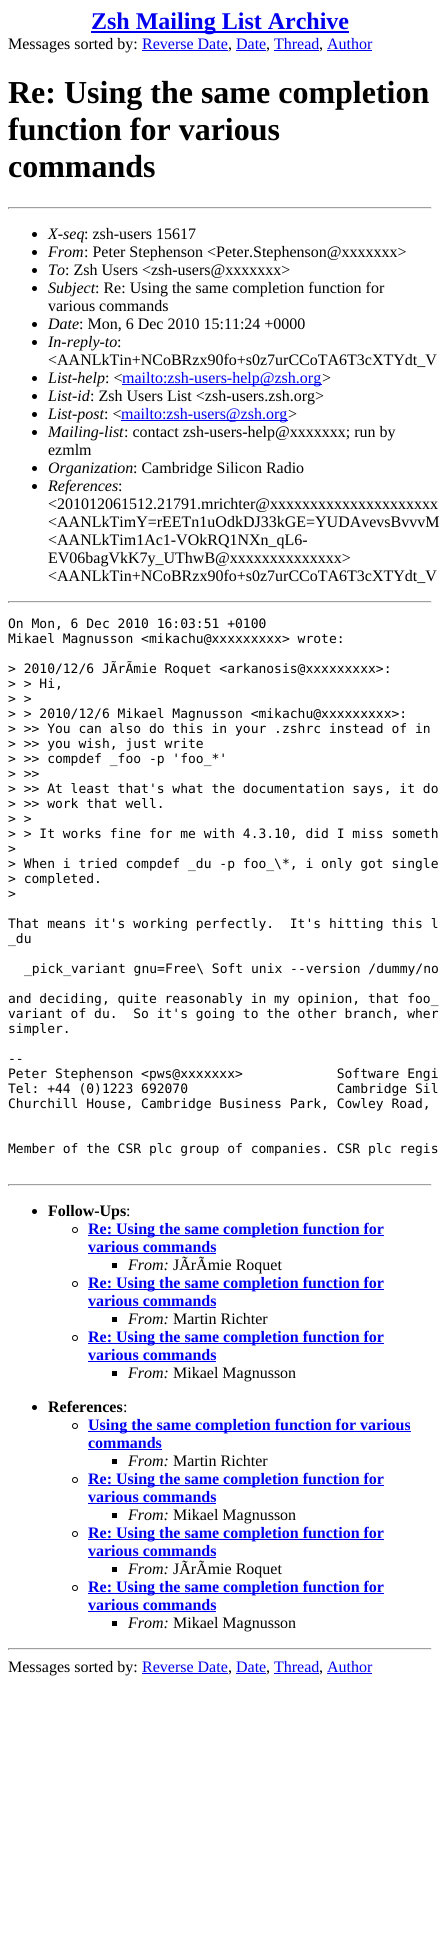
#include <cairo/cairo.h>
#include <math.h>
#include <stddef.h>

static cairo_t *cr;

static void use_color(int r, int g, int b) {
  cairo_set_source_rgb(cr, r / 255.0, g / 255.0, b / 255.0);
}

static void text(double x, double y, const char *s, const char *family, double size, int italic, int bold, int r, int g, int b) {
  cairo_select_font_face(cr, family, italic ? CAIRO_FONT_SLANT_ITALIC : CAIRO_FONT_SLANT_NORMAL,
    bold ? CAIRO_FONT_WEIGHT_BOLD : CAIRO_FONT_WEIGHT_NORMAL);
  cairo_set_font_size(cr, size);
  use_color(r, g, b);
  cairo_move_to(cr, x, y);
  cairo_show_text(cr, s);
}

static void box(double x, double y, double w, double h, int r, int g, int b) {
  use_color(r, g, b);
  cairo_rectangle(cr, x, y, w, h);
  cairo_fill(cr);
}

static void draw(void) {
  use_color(255, 255, 255);
  cairo_paint(cr);
  box(91, 31, 258, 2, 0, 0, 238);
  box(142, 50, 86, 1, 0, 0, 238);
  box(236, 50, 30, 1, 0, 0, 238);
  box(274, 50, 45, 1, 0, 0, 238);
  box(327, 50, 45, 1, 0, 0, 238);
  box(8, 207, 424, 1, 159, 159, 159);
  box(431, 207, 1, 2, 238, 238, 238);
  box(8, 208, 424, 1, 238, 238, 238);
  box(8, 207, 1, 2, 159, 159, 159);
  use_color(0, 0, 0);
  cairo_arc(cr, 34.5, 234.5, 2.5, 0, 2 * M_PI);
  cairo_fill(cr);
  cairo_arc(cr, 34.5, 252.5, 2.5, 0, 2 * M_PI);
  cairo_fill(cr);
  cairo_arc(cr, 34.5, 270.5, 2.5, 0, 2 * M_PI);
  cairo_fill(cr);
  cairo_arc(cr, 34.5, 288.5, 2.5, 0, 2 * M_PI);
  cairo_fill(cr);
  cairo_arc(cr, 34.5, 324.5, 2.5, 0, 2 * M_PI);
  cairo_fill(cr);
  cairo_arc(cr, 34.5, 342.5, 2.5, 0, 2 * M_PI);
  cairo_fill(cr);
  cairo_arc(cr, 34.5, 378.5, 2.5, 0, 2 * M_PI);
  cairo_fill(cr);
  box(122, 384, 200, 1, 0, 0, 238);
  use_color(0, 0, 0);
  cairo_arc(cr, 34.5, 396.5, 2.5, 0, 2 * M_PI);
  cairo_fill(cr);
  cairo_arc(cr, 34.5, 414.5, 2.5, 0, 2 * M_PI);
  cairo_fill(cr);
  box(121, 420, 167, 1, 0, 0, 238);
  use_color(0, 0, 0);
  cairo_arc(cr, 34.5, 432.5, 2.5, 0, 2 * M_PI);
  cairo_fill(cr);
  cairo_arc(cr, 34.5, 468.5, 2.5, 0, 2 * M_PI);
  cairo_fill(cr);
  cairo_arc(cr, 34.5, 486.5, 2.5, 0, 2 * M_PI);
  cairo_fill(cr);
  box(8, 601, 424, 1, 159, 159, 159);
  box(431, 601, 1, 2, 238, 238, 238);
  box(8, 602, 424, 1, 238, 238, 238);
  box(8, 601, 1, 2, 159, 159, 159);
  box(8, 1184, 424, 1, 159, 159, 159);
  box(431, 1184, 1, 2, 238, 238, 238);
  box(8, 1185, 424, 1, 238, 238, 238);
  box(8, 1184, 1, 2, 159, 159, 159);
  use_color(0, 0, 0);
  cairo_arc(cr, 34.5, 1211.5, 2.5, 0, 2 * M_PI);
  cairo_fill(cr);
  cairo_arc(cr, 75, 1230, 2.5, 0, 2 * M_PI);
  cairo_set_line_width(cr, 1);
  cairo_stroke(cr);
  box(88, 1235, 296, 1, 0, 0, 238);
  box(88, 1253, 128, 1, 0, 0, 238);
  box(112, 1263, 5, 5, 0, 0, 0);
  cairo_arc(cr, 75, 1284, 2.5, 0, 2 * M_PI);
  cairo_stroke(cr);
  box(88, 1289, 296, 1, 0, 0, 238);
  box(88, 1307, 128, 1, 0, 0, 238);
  box(112, 1317, 5, 5, 0, 0, 0);
  cairo_arc(cr, 75, 1338, 2.5, 0, 2 * M_PI);
  cairo_stroke(cr);
  box(88, 1343, 296, 1, 0, 0, 238);
  box(88, 1361, 128, 1, 0, 0, 238);
  box(112, 1371, 5, 5, 0, 0, 0);
  cairo_arc(cr, 34.5, 1407.5, 2.5, 0, 2 * M_PI);
  cairo_fill(cr);
  cairo_arc(cr, 75, 1426, 2.5, 0, 2 * M_PI);
  cairo_stroke(cr);
  box(88, 1431, 323, 1, 0, 0, 238);
  box(88, 1449, 74, 1, 0, 0, 238);
  box(112, 1459, 5, 5, 0, 0, 0);
  cairo_arc(cr, 75, 1480, 2.5, 0, 2 * M_PI);
  cairo_stroke(cr);
  box(88, 1485, 296, 1, 0, 0, 238);
  box(88, 1503, 128, 1, 0, 0, 238);
  box(112, 1513, 5, 5, 0, 0, 0);
  cairo_arc(cr, 75, 1534, 2.5, 0, 2 * M_PI);
  cairo_stroke(cr);
  box(88, 1539, 296, 1, 0, 0, 238);
  box(88, 1557, 128, 1, 0, 0, 238);
  box(112, 1567, 5, 5, 0, 0, 0);
  cairo_arc(cr, 75, 1588, 2.5, 0, 2 * M_PI);
  cairo_stroke(cr);
  box(88, 1593, 296, 1, 0, 0, 238);
  box(88, 1611, 128, 1, 0, 0, 238);
  box(112, 1621, 5, 5, 0, 0, 0);
  box(8, 1648, 424, 1, 159, 159, 159);
  box(431, 1648, 1, 2, 238, 238, 238);
  box(8, 1649, 424, 1, 238, 238, 238);
  box(8, 1648, 1, 2, 159, 159, 159);
  box(142, 1673, 86, 1, 0, 0, 238);
  box(236, 1673, 30, 1, 0, 0, 238);
  box(274, 1673, 45, 1, 0, 0, 238);
  box(327, 1673, 45, 1, 0, 0, 238);
  text(91, 29, "Zsh Mailing List Archive", "Liberation Serif", 24, 0, 1, 0, 0, 238);
  text(8, 49, "Messages sorted by:", "Liberation Serif", 16, 0, 0, 0, 0, 0);
  text(142, 49, "Reverse Date", "Liberation Serif", 16, 0, 0, 0, 0, 238);
  text(228, 49, ",", "Liberation Serif", 16, 0, 0, 0, 0, 0);
  text(236, 49, "Date", "Liberation Serif", 16, 0, 0, 0, 0, 238);
  text(266, 49, ",", "Liberation Serif", 16, 0, 0, 0, 0, 0);
  text(274, 49, "Thread", "Liberation Serif", 16, 0, 0, 0, 0, 238);
  text(319, 49, ",", "Liberation Serif", 16, 0, 0, 0, 0, 0);
  text(327, 49, "Author", "Liberation Serif", 16, 0, 0, 0, 0, 238);
  text(8, 103, "Re: Using the same completion", "Liberation Serif", 32, 0, 1, 0, 0, 0);
  text(8, 140, "function for various", "Liberation Serif", 32, 0, 1, 0, 0, 0);
  text(8, 177, "commands", "Liberation Serif", 32, 0, 1, 0, 0, 0);
  text(48, 239, "X-seq", "Liberation Serif", 16, 1, 0, 0, 0, 0);
  text(84, 239, ": zsh-users 15617", "Liberation Serif", 16, 0, 0, 0, 0, 0);
  text(48, 257, "From", "Liberation Serif", 16, 1, 0, 0, 0, 0);
  text(84, 257, ": Peter Stephenson <Peter.Stephenson@xxxxxxx>", "Liberation Serif", 16, 0, 0, 0, 0, 0);
  text(48, 275, "To", "Liberation Serif", 16, 1, 0, 0, 0, 0);
  text(65, 275, ": Zsh Users <zsh-users@xxxxxxx>", "Liberation Serif", 16, 0, 0, 0, 0, 0);
  text(48, 293, "Subject", "Liberation Serif", 16, 1, 0, 0, 0, 0);
  text(95, 293, ": Re: Using the same completion function for", "Liberation Serif", 16, 0, 0, 0, 0, 0);
  text(48, 311, "various commands", "Liberation Serif", 16, 0, 0, 0, 0, 0);
  text(48, 329, "Date", "Liberation Serif", 16, 1, 0, 0, 0, 0);
  text(79, 329, ": Mon, 6 Dec 2010 15:11:24 +0000", "Liberation Serif", 16, 0, 0, 0, 0, 0);
  text(48, 347, "In-reply-to", "Liberation Serif", 16, 1, 0, 0, 0, 0);
  text(117, 347, ":", "Liberation Serif", 16, 0, 0, 0, 0, 0);
  text(48, 365, "<AANLkTin+NCoBRzx90fo+s0z7urCCoTA6T3cXTYdt_V", "Liberation Serif", 16, 0, 0, 0, 0, 0);
  text(48, 383, "List-help", "Liberation Serif", 16, 1, 0, 0, 0, 0);
  text(105, 383, ": <", "Liberation Serif", 16, 0, 0, 0, 0, 0);
  text(122, 383, "mailto:zsh-users-help@zsh.org", "Liberation Serif", 16, 0, 0, 0, 0, 238);
  text(322, 383, ">", "Liberation Serif", 16, 0, 0, 0, 0, 0);
  text(48, 401, "List-id", "Liberation Serif", 16, 1, 0, 0, 0, 0);
  text(90, 401, ": Zsh Users List <zsh-users.zsh.org>", "Liberation Serif", 16, 0, 0, 0, 0, 0);
  text(48, 419, "List-post", "Liberation Serif", 16, 1, 0, 0, 0, 0);
  text(104, 419, ": <", "Liberation Serif", 16, 0, 0, 0, 0, 0);
  text(121, 419, "mailto:zsh-users@zsh.org", "Liberation Serif", 16, 0, 0, 0, 0, 238);
  text(288, 419, ">", "Liberation Serif", 16, 0, 0, 0, 0, 0);
  text(48, 437, "Mailing-list", "Liberation Serif", 16, 1, 0, 0, 0, 0);
  text(124, 437, ": contact zsh-users-help@xxxxxxx; run by", "Liberation Serif", 16, 0, 0, 0, 0, 0);
  text(48, 455, "ezmlm", "Liberation Serif", 16, 0, 0, 0, 0, 0);
  text(48, 473, "Organization", "Liberation Serif", 16, 1, 0, 0, 0, 0);
  text(133, 473, ": Cambridge Silicon Radio", "Liberation Serif", 16, 0, 0, 0, 0, 0);
  text(48, 491, "References", "Liberation Serif", 16, 1, 0, 0, 0, 0);
  text(118, 491, ":", "Liberation Serif", 16, 0, 0, 0, 0, 0);
  text(48, 509, "<201012061512.21791.mrichter@xxxxxxxxxxxxxxxxxxxxx", "Liberation Serif", 16, 0, 0, 0, 0, 0);
  text(48, 527, "<AANLkTimY=rEETn1uOdkDJ33kGE=YUDAvevsBvvvM", "Liberation Serif", 16, 0, 0, 0, 0, 0);
  text(48, 545, "<AANLkTim1Ac1-VOkRQ1NXn_qL6-", "Liberation Serif", 16, 0, 0, 0, 0, 0);
  text(48, 563, "EV06bagVkK7y_UThwB@xxxxxxxxxxxxxx>", "Liberation Serif", 16, 0, 0, 0, 0, 0);
  text(48, 581, "<AANLkTin+NCoBRzx90fo+s0z7urCCoTA6T3cXTYdt_V", "Liberation Serif", 16, 0, 0, 0, 0, 0);
  text(8, 628, "On Mon, 6 Dec 2010 16:03:51 +0100", "DejaVu Sans Mono", 13, 0, 0, 0, 0, 0);
  text(8, 643, "Mikael Magnusson <mikachu@xxxxxxxxx> wrote:", "DejaVu Sans Mono", 13, 0, 0, 0, 0, 0);
  text(8, 673, "> 2010/12/6 JÃrÃmie Roquet <arkanosis@xxxxxxxxx>:", "DejaVu Sans Mono", 13, 0, 0, 0, 0, 0);
  text(8, 688, "> > Hi,", "DejaVu Sans Mono", 13, 0, 0, 0, 0, 0);
  text(8, 703, "> >", "DejaVu Sans Mono", 13, 0, 0, 0, 0, 0);
  text(8, 718, "> > 2010/12/6 Mikael Magnusson <mikachu@xxxxxxxxx>:", "DejaVu Sans Mono", 13, 0, 0, 0, 0, 0);
  text(8, 733, "> >> You can also do this in your .zshrc instead of in", "DejaVu Sans Mono", 13, 0, 0, 0, 0, 0);
  text(8, 748, "> >> you wish, just write", "DejaVu Sans Mono", 13, 0, 0, 0, 0, 0);
  text(8, 763, "> >> compdef _foo -p 'foo_*'", "DejaVu Sans Mono", 13, 0, 0, 0, 0, 0);
  text(8, 778, "> >>", "DejaVu Sans Mono", 13, 0, 0, 0, 0, 0);
  text(8, 793, "> >> At least that's what the documentation says, it do", "DejaVu Sans Mono", 13, 0, 0, 0, 0, 0);
  text(8, 808, "> >> work that well.", "DejaVu Sans Mono", 13, 0, 0, 0, 0, 0);
  text(8, 823, "> >", "DejaVu Sans Mono", 13, 0, 0, 0, 0, 0);
  text(8, 838, "> > It works fine for me with 4.3.10, did I miss someth", "DejaVu Sans Mono", 13, 0, 0, 0, 0, 0);
  text(8, 853, ">", "DejaVu Sans Mono", 13, 0, 0, 0, 0, 0);
  text(8, 868, "> When i tried compdef _du -p foo_\\*, i only got single", "DejaVu Sans Mono", 13, 0, 0, 0, 0, 0);
  text(8, 883, "> completed.", "DejaVu Sans Mono", 13, 0, 0, 0, 0, 0);
  text(8, 898, ">", "DejaVu Sans Mono", 13, 0, 0, 0, 0, 0);
  text(8, 928, "That means it's working perfectly.  It's hitting this l", "DejaVu Sans Mono", 13, 0, 0, 0, 0, 0);
  text(8, 943, "_du", "DejaVu Sans Mono", 13, 0, 0, 0, 0, 0);
  text(24, 973, "_pick_variant gnu=Free\\ Soft unix --version /dummy/no", "DejaVu Sans Mono", 13, 0, 0, 0, 0, 0);
  text(8, 1003, "and deciding, quite reasonably in my opinion, that foo_", "DejaVu Sans Mono", 13, 0, 0, 0, 0, 0);
  text(8, 1018, "variant of du.  So it's going to the other branch, wher", "DejaVu Sans Mono", 13, 0, 0, 0, 0, 0);
  text(8, 1033, "simpler.", "DejaVu Sans Mono", 13, 0, 0, 0, 0, 0);
  text(8, 1063, "--", "DejaVu Sans Mono", 13, 0, 0, 0, 0, 0);
  text(8, 1078, "Peter Stephenson <pws@xxxxxxx>            Software Engi", "DejaVu Sans Mono", 13, 0, 0, 0, 0, 0);
  text(8, 1093, "Tel: +44 (0)1223 692070                   Cambridge Sil", "DejaVu Sans Mono", 13, 0, 0, 0, 0, 0);
  text(8, 1108, "Churchill House, Cambridge Business Park, Cowley Road,", "DejaVu Sans Mono", 13, 0, 0, 0, 0, 0);
  text(8, 1153, "Member of the CSR plc group of companies. CSR plc regis", "DejaVu Sans Mono", 13, 0, 0, 0, 0, 0);
  text(48, 1216, "Follow-Ups", "Liberation Serif", 16, 0, 1, 0, 0, 0);
  text(126, 1216, ":", "Liberation Serif", 16, 0, 0, 0, 0, 0);
  text(88, 1234, "Re: Using the same completion function for", "Liberation Serif", 16, 0, 1, 0, 0, 238);
  text(88, 1252, "various commands", "Liberation Serif", 16, 0, 1, 0, 0, 238);
  text(128, 1270, "From:", "Liberation Serif", 16, 1, 0, 0, 0, 0);
  text(173, 1270, "JÃrÃmie Roquet", "Liberation Serif", 16, 0, 0, 0, 0, 0);
  text(88, 1288, "Re: Using the same completion function for", "Liberation Serif", 16, 0, 1, 0, 0, 238);
  text(88, 1306, "various commands", "Liberation Serif", 16, 0, 1, 0, 0, 238);
  text(128, 1324, "From:", "Liberation Serif", 16, 1, 0, 0, 0, 0);
  text(173, 1324, "Martin Richter", "Liberation Serif", 16, 0, 0, 0, 0, 0);
  text(88, 1342, "Re: Using the same completion function for", "Liberation Serif", 16, 0, 1, 0, 0, 238);
  text(88, 1360, "various commands", "Liberation Serif", 16, 0, 1, 0, 0, 238);
  text(128, 1378, "From:", "Liberation Serif", 16, 1, 0, 0, 0, 0);
  text(173, 1378, "Mikael Magnusson", "Liberation Serif", 16, 0, 0, 0, 0, 0);
  text(48, 1412, "References", "Liberation Serif", 16, 0, 1, 0, 0, 0);
  text(123, 1412, ":", "Liberation Serif", 16, 0, 0, 0, 0, 0);
  text(88, 1430, "Using the same completion function for various", "Liberation Serif", 16, 0, 1, 0, 0, 238);
  text(88, 1448, "commands", "Liberation Serif", 16, 0, 1, 0, 0, 238);
  text(128, 1466, "From:", "Liberation Serif", 16, 1, 0, 0, 0, 0);
  text(173, 1466, "Martin Richter", "Liberation Serif", 16, 0, 0, 0, 0, 0);
  text(88, 1484, "Re: Using the same completion function for", "Liberation Serif", 16, 0, 1, 0, 0, 238);
  text(88, 1502, "various commands", "Liberation Serif", 16, 0, 1, 0, 0, 238);
  text(128, 1520, "From:", "Liberation Serif", 16, 1, 0, 0, 0, 0);
  text(173, 1520, "Mikael Magnusson", "Liberation Serif", 16, 0, 0, 0, 0, 0);
  text(88, 1538, "Re: Using the same completion function for", "Liberation Serif", 16, 0, 1, 0, 0, 238);
  text(88, 1556, "various commands", "Liberation Serif", 16, 0, 1, 0, 0, 238);
  text(128, 1574, "From:", "Liberation Serif", 16, 1, 0, 0, 0, 0);
  text(173, 1574, "JÃrÃmie Roquet", "Liberation Serif", 16, 0, 0, 0, 0, 0);
  text(88, 1592, "Re: Using the same completion function for", "Liberation Serif", 16, 0, 1, 0, 0, 238);
  text(88, 1610, "various commands", "Liberation Serif", 16, 0, 1, 0, 0, 238);
  text(128, 1628, "From:", "Liberation Serif", 16, 1, 0, 0, 0, 0);
  text(173, 1628, "Mikael Magnusson", "Liberation Serif", 16, 0, 0, 0, 0, 0);
  text(8, 1672, "Messages sorted by:", "Liberation Serif", 16, 0, 0, 0, 0, 0);
  text(142, 1672, "Reverse Date", "Liberation Serif", 16, 0, 0, 0, 0, 238);
  text(228, 1672, ",", "Liberation Serif", 16, 0, 0, 0, 0, 0);
  text(236, 1672, "Date", "Liberation Serif", 16, 0, 0, 0, 0, 238);
  text(266, 1672, ",", "Liberation Serif", 16, 0, 0, 0, 0, 0);
  text(274, 1672, "Thread", "Liberation Serif", 16, 0, 0, 0, 0, 238);
  text(319, 1672, ",", "Liberation Serif", 16, 0, 0, 0, 0, 0);
  text(327, 1672, "Author", "Liberation Serif", 16, 0, 0, 0, 0, 238);
}

int main(void) {
  cairo_surface_t *surface = cairo_image_surface_create(CAIRO_FORMAT_RGB24, 440, 1947);
  cr = cairo_create(surface);
  cairo_font_options_t *options = cairo_font_options_create();
  cairo_font_options_set_hint_metrics(options, CAIRO_HINT_METRICS_OFF);
  cairo_font_options_set_hint_style(options, CAIRO_HINT_STYLE_NONE);
  cairo_set_font_options(cr, options);
  cairo_set_miter_limit(cr, 4);
  draw();
  cairo_surface_write_to_png(surface, "out.png");
  cairo_font_options_destroy(options);
  cairo_destroy(cr);
  cairo_surface_destroy(surface);
  return 0;
}
